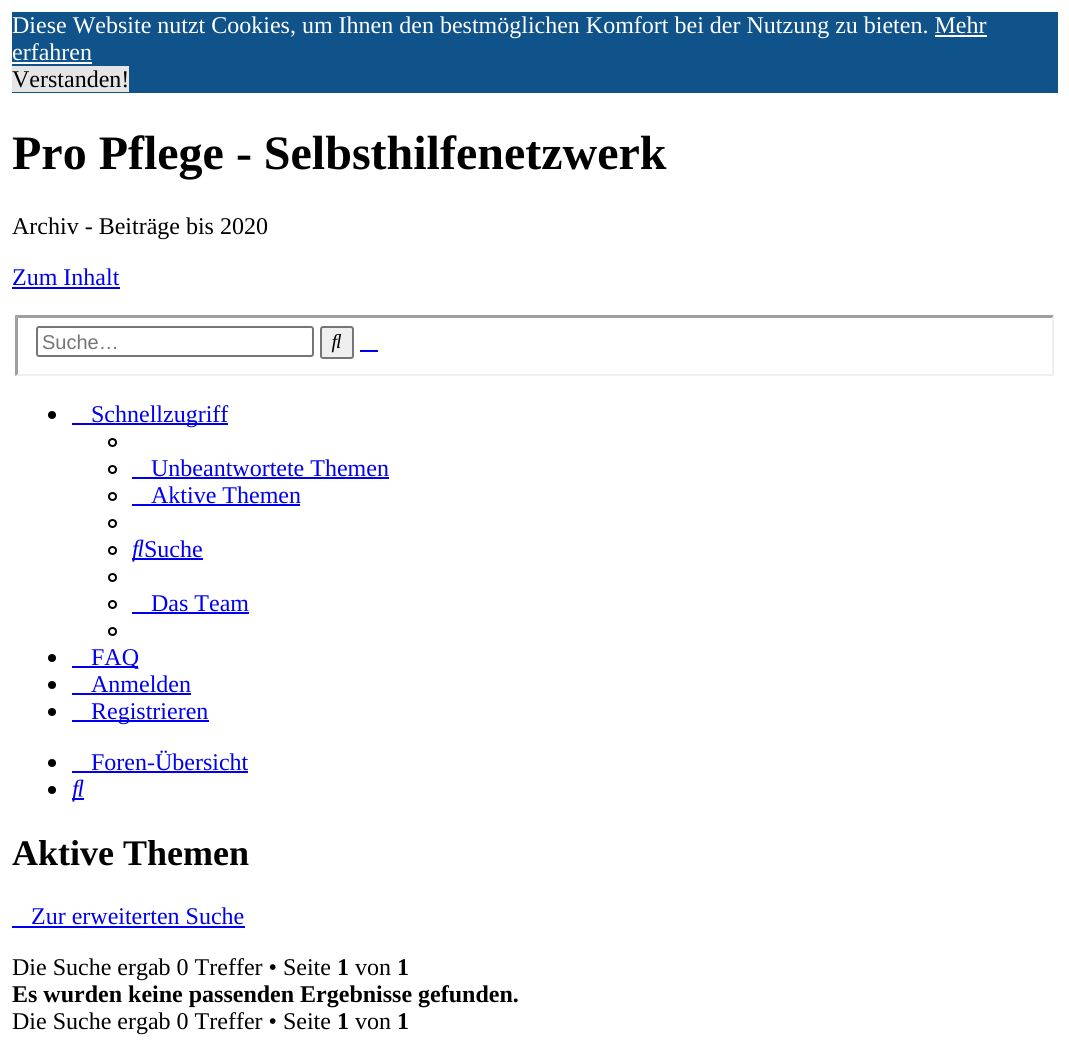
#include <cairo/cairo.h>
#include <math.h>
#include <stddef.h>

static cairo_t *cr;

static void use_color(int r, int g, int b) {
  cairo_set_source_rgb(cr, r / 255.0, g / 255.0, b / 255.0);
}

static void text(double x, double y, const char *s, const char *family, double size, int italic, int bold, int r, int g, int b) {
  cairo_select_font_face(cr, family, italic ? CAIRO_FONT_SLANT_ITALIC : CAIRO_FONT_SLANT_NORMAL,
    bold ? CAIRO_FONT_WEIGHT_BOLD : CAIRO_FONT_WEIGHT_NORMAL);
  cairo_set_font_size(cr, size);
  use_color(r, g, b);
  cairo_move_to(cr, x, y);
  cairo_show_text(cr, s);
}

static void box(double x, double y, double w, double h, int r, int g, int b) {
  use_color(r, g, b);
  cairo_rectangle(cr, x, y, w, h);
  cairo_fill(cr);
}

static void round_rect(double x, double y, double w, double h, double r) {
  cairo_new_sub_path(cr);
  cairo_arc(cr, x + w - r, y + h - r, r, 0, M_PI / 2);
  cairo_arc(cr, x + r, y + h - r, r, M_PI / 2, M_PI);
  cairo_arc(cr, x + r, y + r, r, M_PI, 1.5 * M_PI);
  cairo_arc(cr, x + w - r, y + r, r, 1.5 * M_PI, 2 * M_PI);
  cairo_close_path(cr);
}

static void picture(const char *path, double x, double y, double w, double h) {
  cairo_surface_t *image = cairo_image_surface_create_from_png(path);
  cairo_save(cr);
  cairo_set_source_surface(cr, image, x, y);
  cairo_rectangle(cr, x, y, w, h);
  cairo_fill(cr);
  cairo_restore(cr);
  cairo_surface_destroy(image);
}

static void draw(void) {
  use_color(255, 255, 255);
  cairo_paint(cr);
  box(12, 12, 1046, 81, 15, 83, 138);
  box(935, 35, 52, 2, 255, 255, 255);
  box(12, 62, 80, 2, 255, 255, 255);
  box(12, 66, 117, 26, 229, 229, 229);
  box(12, 287, 108, 2, 0, 0, 238);
  use_color(159, 159, 159);
  cairo_new_path(cr);
  cairo_move_to(cr, 15, 315);
  cairo_line_to(cr, 1054, 315);
  cairo_line_to(cr, 1052, 318);
  cairo_line_to(cr, 18, 318);
  cairo_close_path(cr);
  cairo_fill(cr);
  use_color(239, 239, 239);
  cairo_new_path(cr);
  cairo_move_to(cr, 1054, 315);
  cairo_line_to(cr, 1054, 376);
  cairo_line_to(cr, 1052, 374);
  cairo_line_to(cr, 1052, 318);
  cairo_close_path(cr);
  cairo_fill(cr);
  cairo_new_path(cr);
  cairo_move_to(cr, 1054, 376);
  cairo_line_to(cr, 15, 376);
  cairo_line_to(cr, 18, 374);
  cairo_line_to(cr, 1052, 374);
  cairo_close_path(cr);
  cairo_fill(cr);
  use_color(159, 159, 159);
  cairo_new_path(cr);
  cairo_move_to(cr, 15, 376);
  cairo_line_to(cr, 15, 315);
  cairo_line_to(cr, 18, 318);
  cairo_line_to(cr, 18, 374);
  cairo_close_path(cr);
  cairo_fill(cr);
  round_rect(37, 327, 276, 29, 2);
  use_color(118, 118, 118);
  cairo_stroke(cr);
  use_color(239, 239, 239);
  round_rect(321, 327, 32, 31, 2);
  cairo_fill_preserve(cr);
  use_color(118, 118, 118);
  cairo_stroke(cr);
  picture("img_01.png", 331, 333, 10, 20);
  box(360, 350, 18, 2, 0, 0, 238);
  use_color(0, 0, 0);
  cairo_arc(cr, 52, 415, 4, 0, 2 * M_PI);
  cairo_fill(cr);
  box(72, 423, 156, 2, 0, 0, 238);
  cairo_arc(cr, 112.5, 442.5, 3.5, 0, 2 * M_PI);
  use_color(0, 0, 0);
  cairo_stroke(cr);
  cairo_arc(cr, 112.5, 469.5, 3.5, 0, 2 * M_PI);
  cairo_stroke(cr);
  box(132, 477, 257, 2, 0, 0, 238);
  cairo_arc(cr, 112.5, 496.5, 3.5, 0, 2 * M_PI);
  use_color(0, 0, 0);
  cairo_stroke(cr);
  box(132, 504, 168, 2, 0, 0, 238);
  cairo_arc(cr, 112.5, 523.5, 3.5, 0, 2 * M_PI);
  use_color(0, 0, 0);
  cairo_stroke(cr);
  cairo_arc(cr, 112.5, 550.5, 3.5, 0, 2 * M_PI);
  cairo_stroke(cr);
  box(132, 558, 71, 2, 0, 0, 238);
  picture("img_02.png", 132, 539, 12, 23);
  cairo_arc(cr, 112.5, 577.5, 3.5, 0, 2 * M_PI);
  use_color(0, 0, 0);
  cairo_stroke(cr);
  cairo_arc(cr, 112.5, 604.5, 3.5, 0, 2 * M_PI);
  cairo_stroke(cr);
  box(132, 612, 117, 2, 0, 0, 238);
  cairo_arc(cr, 112.5, 631.5, 3.5, 0, 2 * M_PI);
  use_color(0, 0, 0);
  cairo_stroke(cr);
  cairo_arc(cr, 52, 658, 4, 0, 2 * M_PI);
  cairo_fill(cr);
  box(72, 666, 66, 2, 0, 0, 238);
  use_color(0, 0, 0);
  cairo_arc(cr, 52, 685, 4, 0, 2 * M_PI);
  cairo_fill(cr);
  box(72, 693, 119, 2, 0, 0, 238);
  use_color(0, 0, 0);
  cairo_arc(cr, 52, 712, 4, 0, 2 * M_PI);
  cairo_fill(cr);
  box(72, 720, 137, 2, 0, 0, 238);
  use_color(0, 0, 0);
  cairo_arc(cr, 52, 763, 4, 0, 2 * M_PI);
  cairo_fill(cr);
  box(72, 771, 176, 2, 0, 0, 238);
  use_color(0, 0, 0);
  cairo_arc(cr, 52, 790, 4, 0, 2 * M_PI);
  cairo_fill(cr);
  box(72, 798, 12, 2, 0, 0, 238);
  picture("img_02.png", 72, 779, 12, 23);
  box(12, 926, 233, 2, 0, 0, 238);
  text(12, 33, "Diese Website nutzt Cookies, um Ihnen den bestmöglichen Komfort bei der Nutzung zu bieten. Mehr", "Liberation Serif", 24, 0, 0, 255, 255, 255);
  text(12, 60, "erfahren", "Liberation Serif", 24, 0, 0, 255, 255, 255);
  text(12, 87, "Verstanden!", "Liberation Serif", 24, 0, 0, 0, 0, 0);
  text(12, 169, "Pro Pflege - Selbsthilfenetzwerk", "Liberation Serif", 48, 0, 1, 0, 0, 0);
  text(12, 234, "Archiv - Beiträge bis 2020", "Liberation Serif", 24, 0, 0, 0, 0, 0);
  text(12, 285, "Zum Inhalt", "Liberation Serif", 24, 0, 0, 0, 0, 238);
  text(42, 349, "Suche…", "Liberation Sans", 20, 0, 0, 117, 117, 117);
  text(91, 422, "Schnellzugriff", "Liberation Serif", 24, 0, 0, 0, 0, 238);
  text(151, 476, "Unbeantwortete Themen", "Liberation Serif", 24, 0, 0, 0, 0, 238);
  text(151, 503, "Aktive Themen", "Liberation Serif", 24, 0, 0, 0, 0, 238);
  text(144, 557, "Suche", "Liberation Serif", 24, 0, 0, 0, 0, 238);
  text(151, 611, "Das Team", "Liberation Serif", 24, 0, 0, 0, 0, 238);
  text(91, 665, "FAQ", "Liberation Serif", 24, 0, 0, 0, 0, 238);
  text(91, 692, "Anmelden", "Liberation Serif", 24, 0, 0, 0, 0, 238);
  text(91, 719, "Registrieren", "Liberation Serif", 24, 0, 0, 0, 0, 238);
  text(91, 770, "Foren-Übersicht", "Liberation Serif", 24, 0, 0, 0, 0, 238);
  text(12, 865, "Aktive Themen", "Liberation Serif", 36, 0, 1, 0, 0, 0);
  text(31, 924, "Zur erweiterten Suche", "Liberation Serif", 24, 0, 0, 0, 0, 238);
  text(12, 975, "Die Suche ergab 0 Treffer • Seite", "Liberation Serif", 24, 0, 0, 0, 0, 0);
  text(337, 975, "1", "Liberation Serif", 24, 0, 1, 0, 0, 0);
  text(355, 975, "von", "Liberation Serif", 24, 0, 0, 0, 0, 0);
  text(397, 975, "1", "Liberation Serif", 24, 0, 1, 0, 0, 0);
  text(12, 1002, "Es wurden keine passenden Ergebnisse gefunden.", "Liberation Serif", 24, 0, 1, 0, 0, 0);
  text(12, 1029, "Die Suche ergab 0 Treffer • Seite", "Liberation Serif", 24, 0, 0, 0, 0, 0);
  text(337, 1029, "1", "Liberation Serif", 24, 0, 1, 0, 0, 0);
  text(355, 1029, "von", "Liberation Serif", 24, 0, 0, 0, 0, 0);
  text(397, 1029, "1", "Liberation Serif", 24, 0, 1, 0, 0, 0);
}

int main(void) {
  cairo_surface_t *surface = cairo_image_surface_create(CAIRO_FORMAT_RGB24, 1069, 1041);
  cr = cairo_create(surface);
  cairo_font_options_t *options = cairo_font_options_create();
  cairo_font_options_set_hint_metrics(options, CAIRO_HINT_METRICS_OFF);
  cairo_font_options_set_hint_style(options, CAIRO_HINT_STYLE_NONE);
  cairo_set_font_options(cr, options);
  cairo_set_miter_limit(cr, 4);
  draw();
  cairo_surface_write_to_png(surface, "out.png");
  cairo_font_options_destroy(options);
  cairo_destroy(cr);
  cairo_surface_destroy(surface);
  return 0;
}
